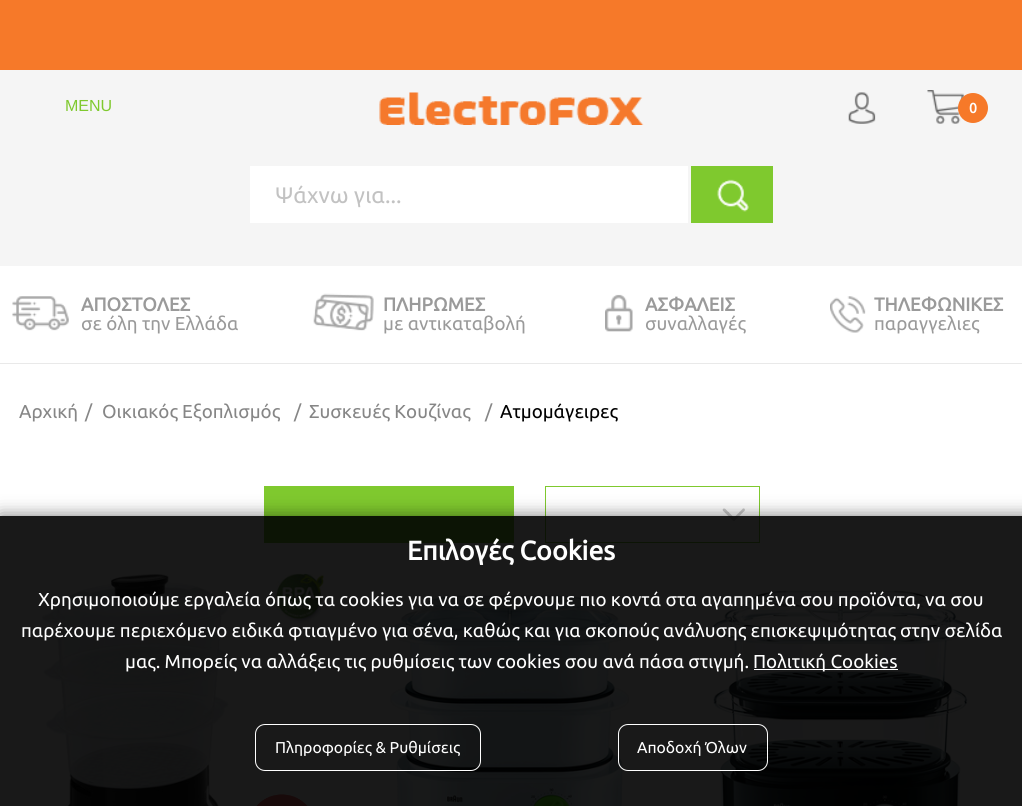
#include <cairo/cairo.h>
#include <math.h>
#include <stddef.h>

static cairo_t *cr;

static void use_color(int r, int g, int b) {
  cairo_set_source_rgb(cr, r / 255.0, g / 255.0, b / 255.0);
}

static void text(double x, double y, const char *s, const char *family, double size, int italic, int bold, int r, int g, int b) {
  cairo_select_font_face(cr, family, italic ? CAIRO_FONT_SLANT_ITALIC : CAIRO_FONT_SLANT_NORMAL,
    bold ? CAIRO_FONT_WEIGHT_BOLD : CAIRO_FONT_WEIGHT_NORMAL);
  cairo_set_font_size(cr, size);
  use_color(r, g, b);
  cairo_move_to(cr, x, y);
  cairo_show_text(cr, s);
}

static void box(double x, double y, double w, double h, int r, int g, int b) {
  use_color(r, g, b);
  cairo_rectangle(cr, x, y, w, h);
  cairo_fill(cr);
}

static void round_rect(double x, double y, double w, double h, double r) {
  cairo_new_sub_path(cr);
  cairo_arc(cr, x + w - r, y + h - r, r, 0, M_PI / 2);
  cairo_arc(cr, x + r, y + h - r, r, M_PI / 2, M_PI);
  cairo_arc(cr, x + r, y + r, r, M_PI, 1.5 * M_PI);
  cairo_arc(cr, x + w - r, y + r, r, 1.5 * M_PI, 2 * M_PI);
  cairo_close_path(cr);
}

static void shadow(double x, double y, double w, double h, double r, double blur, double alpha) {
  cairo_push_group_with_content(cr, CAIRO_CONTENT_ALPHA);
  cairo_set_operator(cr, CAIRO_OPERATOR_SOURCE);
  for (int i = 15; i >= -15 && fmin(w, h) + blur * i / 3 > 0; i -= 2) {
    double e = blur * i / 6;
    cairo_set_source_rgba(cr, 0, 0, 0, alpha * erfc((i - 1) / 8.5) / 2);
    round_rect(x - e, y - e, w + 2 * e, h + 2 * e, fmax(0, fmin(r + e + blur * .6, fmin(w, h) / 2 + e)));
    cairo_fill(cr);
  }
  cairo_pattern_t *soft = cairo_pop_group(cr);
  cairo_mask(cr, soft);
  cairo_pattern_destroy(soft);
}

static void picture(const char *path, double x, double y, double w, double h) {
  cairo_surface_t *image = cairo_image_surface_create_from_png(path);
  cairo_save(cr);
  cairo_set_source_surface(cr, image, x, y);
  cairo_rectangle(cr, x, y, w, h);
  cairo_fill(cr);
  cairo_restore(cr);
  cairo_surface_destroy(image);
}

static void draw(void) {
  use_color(255, 255, 255);
  cairo_paint(cr);
  box(0, 70, 1022, 196, 245, 245, 245);
  box(0, 0, 1022, 70, 246, 121, 41);
  picture("img_01.png", 379, 92, 265, 33);
  picture("img_02.png", 848, 92, 28, 32);
  picture("img_03.png", 927, 90, 37, 34);
  cairo_arc(cr, 973, 108, 15, 0, 2 * M_PI);
  cairo_fill(cr);
  box(250, 166, 438, 57, 255, 255, 255);
  box(691, 166, 82, 57, 127, 201, 46);
  picture("img_04.png", 717, 179, 32, 33);
  box(0, 363, 1022, 1, 233, 233, 233);
  picture("img_05.png", 12, 296, 57, 35);
  picture("img_06.png", 313, 293, 61, 38);
  picture("img_07.png", 605, 294, 28, 38);
  picture("img_08.png", 830, 296, 36, 37);
  box(264, 486, 250, 57, 127, 201, 46);
  picture("img_09.png", 722, 508, 23, 13);
  cairo_rectangle(cr, 545.5, 486.5, 214, 56);
  cairo_set_line_width(cr, 1);
  cairo_stroke(cr);
  picture("img_10.png", 42, 573, 282, 233);
  picture("img_11.png", 256, 794, 52, 12);
  picture("img_12.png", 389, 595, 242, 211);
  picture("img_13.png", 712, 590, 257, 216);
  cairo_save(cr);
  cairo_set_fill_rule(cr, CAIRO_FILL_RULE_EVEN_ODD);
  cairo_new_path(cr);
  cairo_move_to(cr, 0, 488);
  cairo_line_to(cr, 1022, 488);
  cairo_line_to(cr, 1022, 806);
  cairo_line_to(cr, 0, 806);
  cairo_close_path(cr);
  cairo_move_to(cr, 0, 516);
  cairo_line_to(cr, 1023, 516);
  cairo_line_to(cr, 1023, 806);
  cairo_line_to(cr, 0, 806);
  cairo_close_path(cr);
  cairo_clip(cr);
  use_color(0, 0, 0);
  shadow(0, 516, 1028, 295, 0, 9, 0.5);
  cairo_restore(cr);
  cairo_set_source_rgba(cr, 0, 0, 0, 0.9);
  cairo_rectangle(cr, 0, 516, 1022, 290);
  cairo_fill(cr);
  box(754, 669, 144, 1, 255, 255, 255);
  round_rect(255.5, 724.5, 225, 46, 9.5);
  cairo_stroke(cr);
  round_rect(618.5, 724.5, 149, 46, 9.5);
  cairo_stroke(cr);
  text(65, 111, "MENU", "Liberation Sans", 16, 0, 0, 127, 201, 46);
  text(969, 113, "0", "Ubuntu", 14, 0, 1, 255, 255, 255);
  text(275, 203, "Ψάχνω για...", "Ubuntu", 22.5, 0, 0, 194, 194, 194);
  text(81, 311, "ΑΠΟΣΤΟΛΕΣ", "Ubuntu", 18.75, 0, 1, 154, 154, 154);
  text(81, 330, "σε όλη την Ελλάδα", "Ubuntu", 18.75, 0, 0, 154, 154, 154);
  text(383, 311, "ΠΛΗΡΩΜΕΣ", "Ubuntu", 18.75, 0, 1, 154, 154, 154);
  text(383, 330, "με αντικαταβολή", "Ubuntu", 18.75, 0, 0, 154, 154, 154);
  text(645, 311, "ΑΣΦΑΛΕΙΣ", "Ubuntu", 18.75, 0, 1, 154, 154, 154);
  text(645, 330, "συναλλαγές", "Ubuntu", 18.75, 0, 0, 154, 154, 154);
  text(874, 311, "ΤΗΛΕΦΩΝΙΚΕΣ", "Ubuntu", 18.75, 0, 1, 154, 154, 154);
  text(874, 330, "παραγγελιες", "Ubuntu", 18.75, 0, 0, 154, 154, 154);
  text(19, 418, "Αρχική", "Ubuntu", 18.75, 0, 0, 134, 134, 134);
  text(85, 418, "/", "Ubuntu", 18.75, 0, 0, 134, 134, 134);
  text(102, 418, "Οικιακός Εξοπλισμός", "Ubuntu", 18.75, 0, 0, 134, 134, 134);
  text(294, 418, "/", "Ubuntu", 18.75, 0, 0, 134, 134, 134);
  text(309, 418, "Συσκευές Κουζίνας", "Ubuntu", 18.75, 0, 0, 134, 134, 134);
  text(485, 418, "/", "Ubuntu", 18.75, 0, 0, 134, 134, 134);
  text(500, 418, "Ατμομάγειρες", "Ubuntu", 18.75, 0, 0, 0, 0, 0);
  text(407, 560, "Επιλογές Cookies", "Ubuntu", 26.75, 0, 1, 255, 255, 255);
  text(38, 606, "Χρησιμοποιούμε εργαλεία όπως τα cookies για να σε φέρνουμε πιο κοντά στα αγαπημένα σου προϊόντα, να σου", "Ubuntu", 18.75, 0, 0, 255, 255, 255);
  text(21, 637, "παρέχουμε περιεχόμενο ειδικά φτιαγμένο για σένα, καθώς και για σκοπούς ανάλυσης επισκεψιμότητας στην σελίδα", "Ubuntu", 18.75, 0, 0, 255, 255, 255);
  text(125, 668, "μας. Μπορείς να αλλάξεις τις ρυθμίσεις των cookies σου ανά πάσα στιγμή.", "Ubuntu", 18.75, 0, 0, 255, 255, 255);
  text(753, 668, "Πολιτική Cookies", "Ubuntu", 18.75, 0, 0, 255, 255, 255);
  text(275, 753, "Πληροφορίες & Ρυθμίσεις", "Ubuntu", 15.75, 0, 0, 255, 255, 255);
  text(637, 753, "Αποδοχή Όλων", "Ubuntu", 15.75, 0, 0, 255, 255, 255);
}

int main(void) {
  cairo_surface_t *surface = cairo_image_surface_create(CAIRO_FORMAT_RGB24, 1022, 806);
  cr = cairo_create(surface);
  cairo_font_options_t *options = cairo_font_options_create();
  cairo_font_options_set_hint_metrics(options, CAIRO_HINT_METRICS_OFF);
  cairo_font_options_set_hint_style(options, CAIRO_HINT_STYLE_NONE);
  cairo_set_font_options(cr, options);
  cairo_set_miter_limit(cr, 4);
  draw();
  cairo_surface_write_to_png(surface, "out.png");
  cairo_font_options_destroy(options);
  cairo_destroy(cr);
  cairo_surface_destroy(surface);
  return 0;
}
